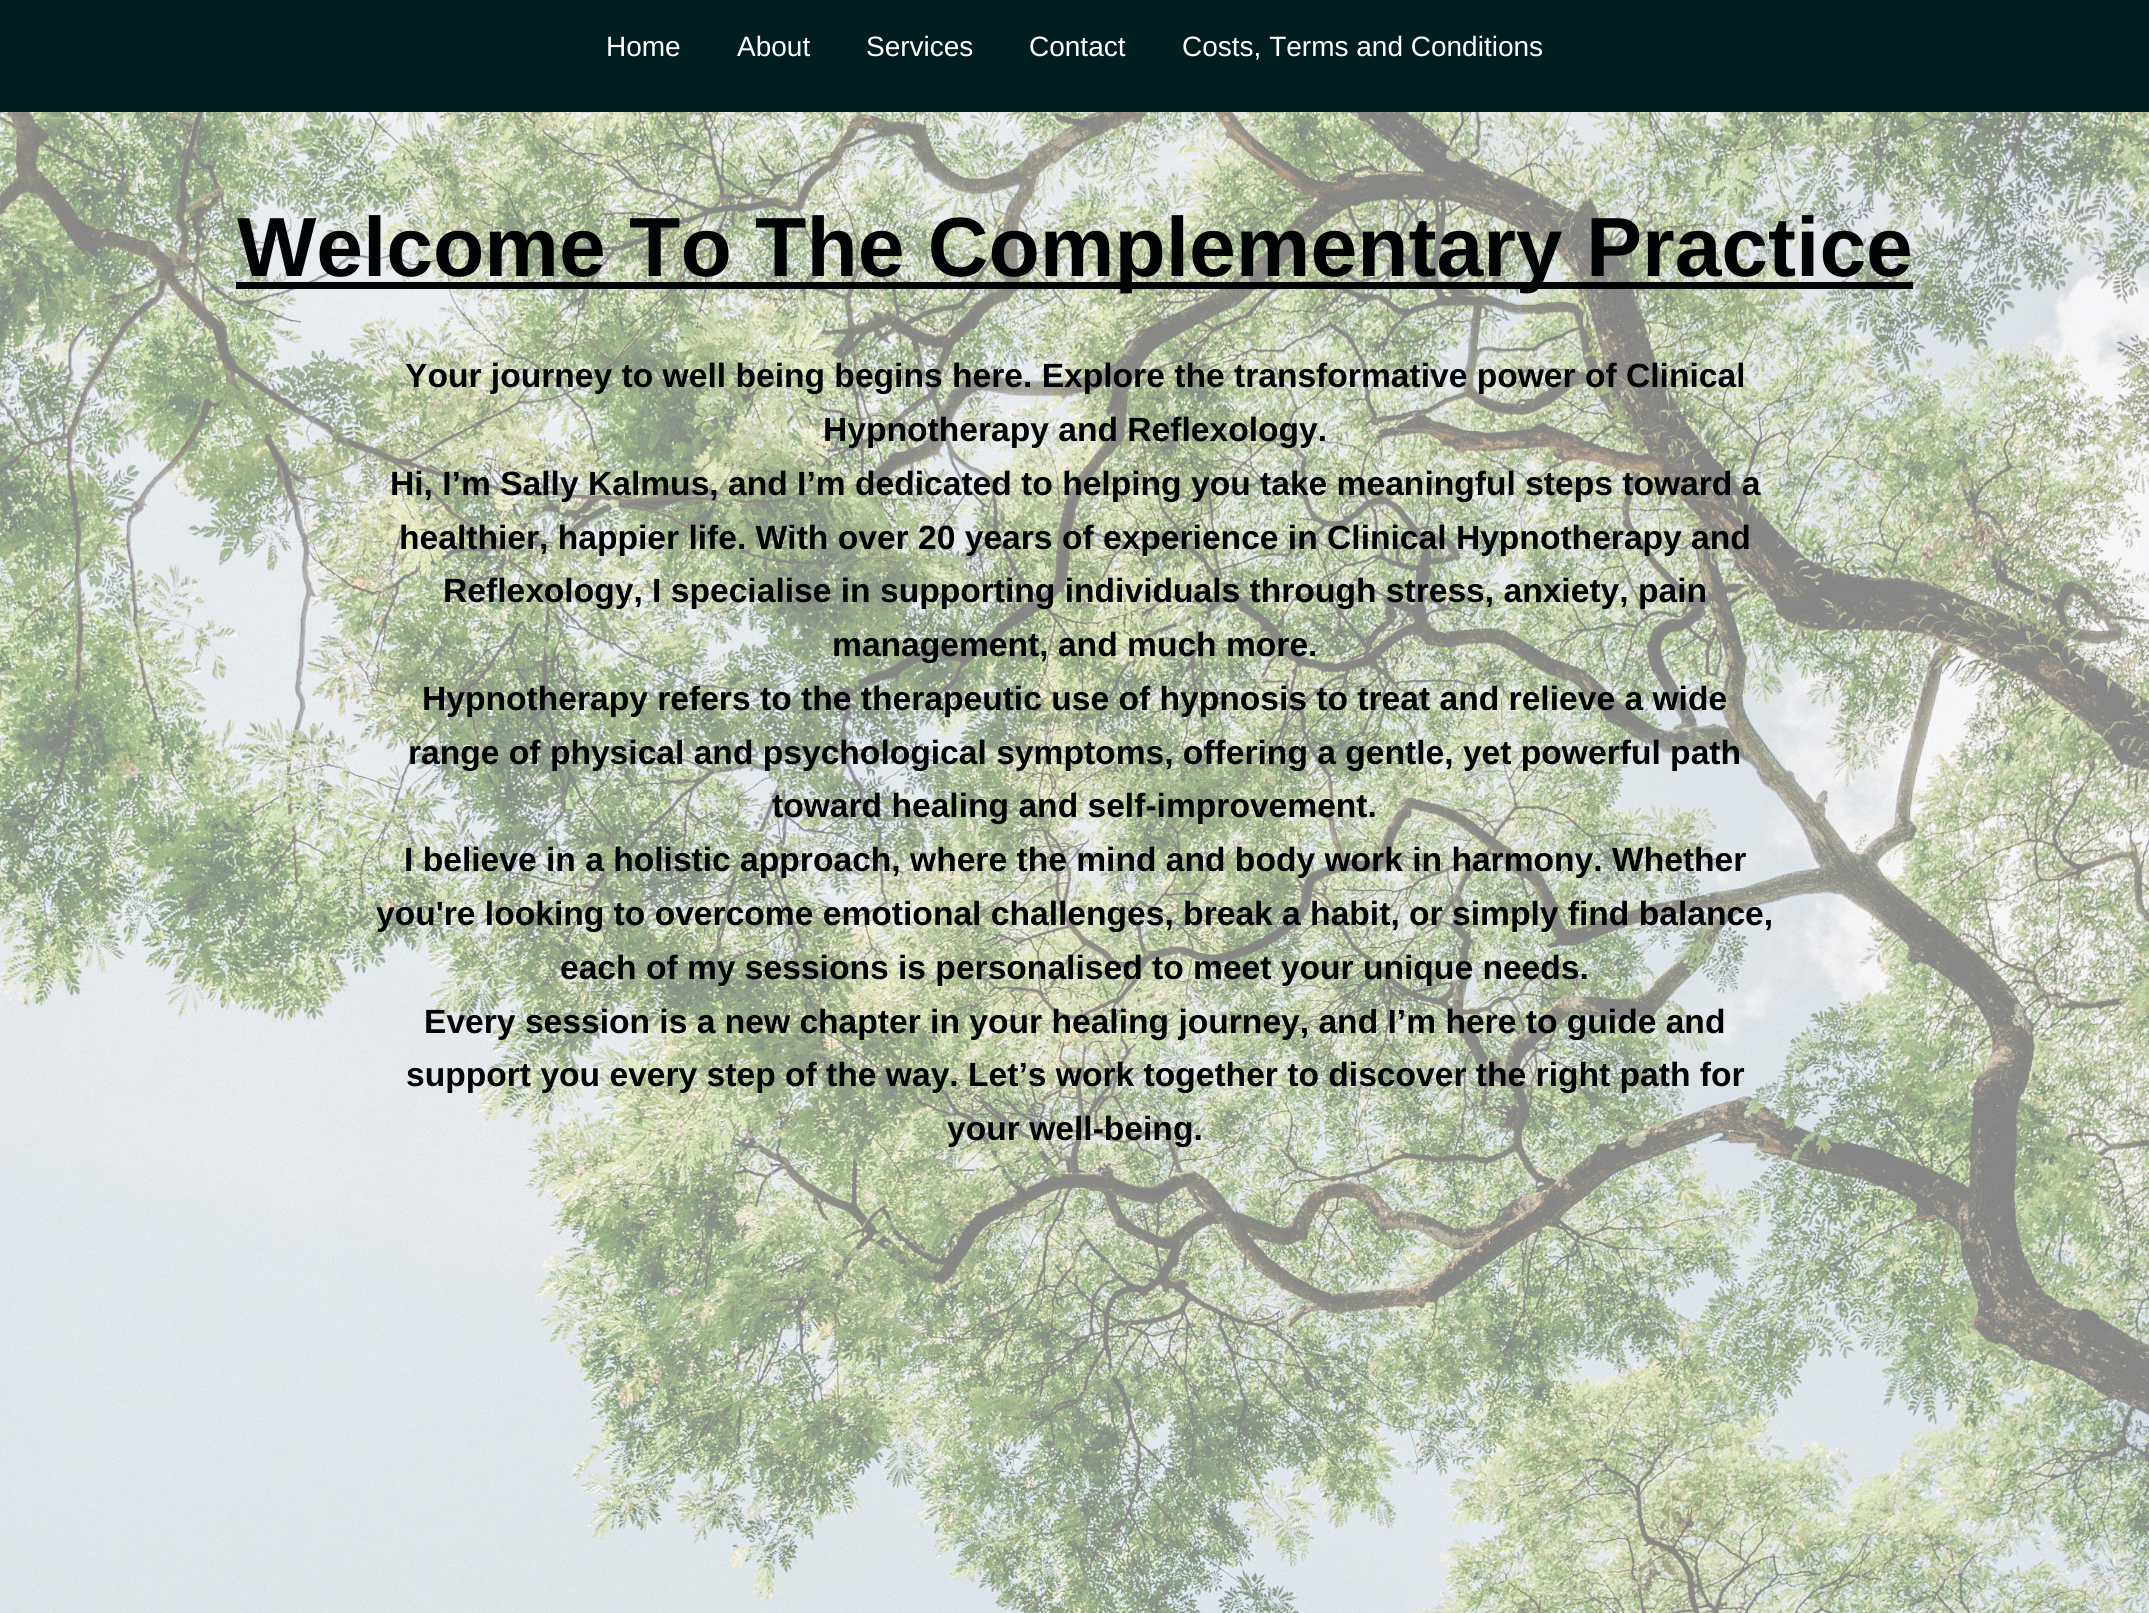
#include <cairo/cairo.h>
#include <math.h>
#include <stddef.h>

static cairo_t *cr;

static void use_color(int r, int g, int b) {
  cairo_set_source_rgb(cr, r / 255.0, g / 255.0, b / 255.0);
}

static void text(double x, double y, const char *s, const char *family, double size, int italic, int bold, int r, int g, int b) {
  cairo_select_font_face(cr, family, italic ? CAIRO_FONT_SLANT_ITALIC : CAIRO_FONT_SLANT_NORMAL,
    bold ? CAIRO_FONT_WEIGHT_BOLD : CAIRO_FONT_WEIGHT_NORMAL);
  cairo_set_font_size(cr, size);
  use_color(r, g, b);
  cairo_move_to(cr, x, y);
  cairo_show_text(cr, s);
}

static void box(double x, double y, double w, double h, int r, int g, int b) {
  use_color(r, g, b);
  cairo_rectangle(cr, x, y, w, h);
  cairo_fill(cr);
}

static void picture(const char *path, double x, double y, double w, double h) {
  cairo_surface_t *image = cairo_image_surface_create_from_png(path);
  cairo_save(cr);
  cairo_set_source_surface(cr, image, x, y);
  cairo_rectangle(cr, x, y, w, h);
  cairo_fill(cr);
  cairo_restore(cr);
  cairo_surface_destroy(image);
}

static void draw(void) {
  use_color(255, 255, 255);
  cairo_paint(cr);
  box(0, 0, 2149, 112, 0, 30, 32);
  picture("img_01.png", 0, 112, 2149, 1501);
  box(236, 282, 1677, 7, 0, 3, 4);
  text(606, 56, "Home", "Liberation Sans", 28, 0, 0, 255, 255, 255);
  text(737, 56, "About", "Liberation Sans", 28, 0, 0, 255, 255, 255);
  text(866, 56, "Services", "Liberation Sans", 28, 0, 0, 255, 255, 255);
  text(1029, 56, "Contact", "Liberation Sans", 28, 0, 0, 255, 255, 255);
  text(1182, 56, "Costs, Terms and Conditions", "Liberation Sans", 28, 0, 0, 255, 255, 255);
  text(237, 276, "Welcome To The Complementary Practice", "Liberation Sans", 84, 0, 1, 0, 3, 4);
  text(405, 387, "Your journey to well being begins here. Explore the transformative power of Clinical", "Liberation Sans", 33.6, 0, 1, 0, 3, 4);
  text(823, 441, "Hypnotherapy and Reflexology.", "Liberation Sans", 33.6, 0, 1, 0, 3, 4);
  text(390, 495, "Hi, I’m Sally Kalmus, and I’m dedicated to helping you take meaningful steps toward a", "Liberation Sans", 33.6, 0, 1, 0, 3, 4);
  text(399, 549, "healthier, happier life. With over 20 years of experience in Clinical Hypnotherapy and", "Liberation Sans", 33.6, 0, 1, 0, 3, 4);
  text(443, 602, "Reflexology, I specialise in supporting individuals through stress, anxiety, pain", "Liberation Sans", 33.6, 0, 1, 0, 3, 4);
  text(832, 656, "management, and much more.", "Liberation Sans", 33.6, 0, 1, 0, 3, 4);
  text(422, 710, "Hypnotherapy refers to the therapeutic use of hypnosis to treat and relieve a wide", "Liberation Sans", 33.6, 0, 1, 0, 3, 4);
  text(408, 764, "range of physical and psychological symptoms, offering a gentle, yet powerful path", "Liberation Sans", 33.6, 0, 1, 0, 3, 4);
  text(772, 817, "toward healing and self-improvement.", "Liberation Sans", 33.6, 0, 1, 0, 3, 4);
  text(404, 871, "I believe in a holistic approach, where the mind and body work in harmony. Whether", "Liberation Sans", 33.6, 0, 1, 0, 3, 4);
  text(376, 925, "you're looking to overcome emotional challenges, break a habit, or simply find balance,", "Liberation Sans", 33.6, 0, 1, 0, 3, 4);
  text(560, 979, "each of my sessions is personalised to meet your unique needs.", "Liberation Sans", 33.6, 0, 1, 0, 3, 4);
  text(424, 1033, "Every session is a new chapter in your healing journey, and I’m here to guide and", "Liberation Sans", 33.6, 0, 1, 0, 3, 4);
  text(406, 1086, "support you every step of the way. Let’s work together to discover the right path for", "Liberation Sans", 33.6, 0, 1, 0, 3, 4);
  text(947, 1140, "your well-being.", "Liberation Sans", 33.6, 0, 1, 0, 3, 4);
}

int main(void) {
  cairo_surface_t *surface = cairo_image_surface_create(CAIRO_FORMAT_RGB24, 2149, 1613);
  cr = cairo_create(surface);
  cairo_font_options_t *options = cairo_font_options_create();
  cairo_font_options_set_hint_metrics(options, CAIRO_HINT_METRICS_OFF);
  cairo_font_options_set_hint_style(options, CAIRO_HINT_STYLE_NONE);
  cairo_set_font_options(cr, options);
  cairo_set_miter_limit(cr, 4);
  draw();
  cairo_surface_write_to_png(surface, "out.png");
  cairo_font_options_destroy(options);
  cairo_destroy(cr);
  cairo_surface_destroy(surface);
  return 0;
}
